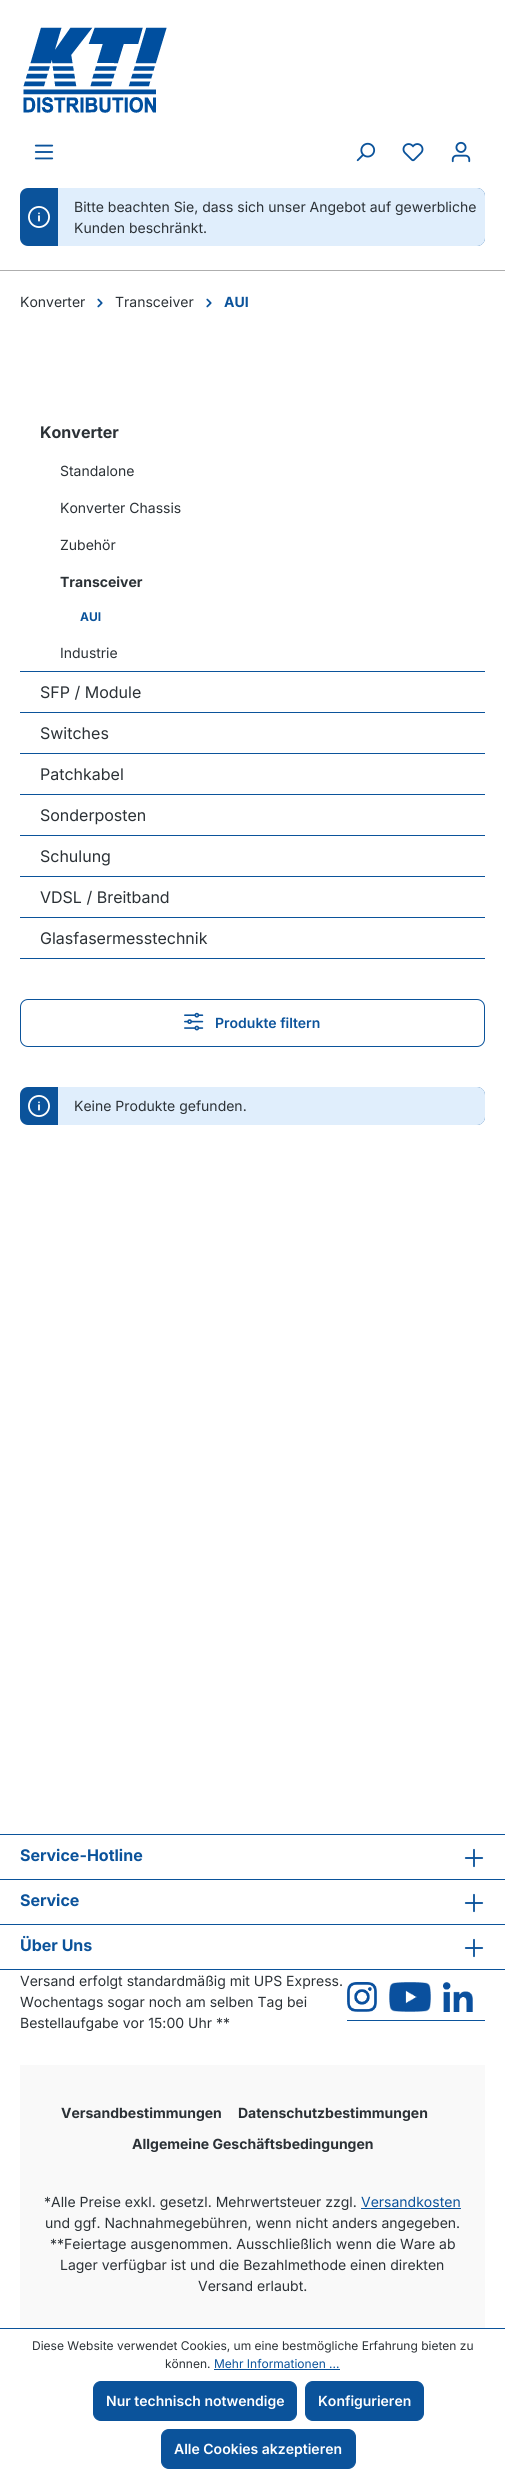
#include <cairo/cairo.h>
#include <math.h>
#include <stddef.h>

static cairo_t *cr;

static void use_color(int r, int g, int b) {
  cairo_set_source_rgb(cr, r / 255.0, g / 255.0, b / 255.0);
}

static void text(double x, double y, const char *s, const char *family, double size, int italic, int bold, int r, int g, int b) {
  cairo_select_font_face(cr, family, italic ? CAIRO_FONT_SLANT_ITALIC : CAIRO_FONT_SLANT_NORMAL,
    bold ? CAIRO_FONT_WEIGHT_BOLD : CAIRO_FONT_WEIGHT_NORMAL);
  cairo_set_font_size(cr, size);
  use_color(r, g, b);
  cairo_move_to(cr, x, y);
  cairo_show_text(cr, s);
}

static void box(double x, double y, double w, double h, int r, int g, int b) {
  use_color(r, g, b);
  cairo_rectangle(cr, x, y, w, h);
  cairo_fill(cr);
}

static void round_rect(double x, double y, double w, double h, double r) {
  cairo_new_sub_path(cr);
  cairo_arc(cr, x + w - r, y + h - r, r, 0, M_PI / 2);
  cairo_arc(cr, x + r, y + h - r, r, M_PI / 2, M_PI);
  cairo_arc(cr, x + r, y + r, r, M_PI, 1.5 * M_PI);
  cairo_arc(cr, x + w - r, y + r, r, 1.5 * M_PI, 2 * M_PI);
  cairo_close_path(cr);
}

static void picture(const char *path, double x, double y, double w, double h) {
  cairo_surface_t *image = cairo_image_surface_create_from_png(path);
  cairo_save(cr);
  cairo_set_source_surface(cr, image, x, y);
  cairo_rectangle(cr, x, y, w, h);
  cairo_fill(cr);
  cairo_restore(cr);
  cairo_surface_destroy(image);
}

static void draw(void) {
  use_color(255, 255, 255);
  cairo_paint(cr);
  picture("img_01.png", 23, 27, 144, 86);
  picture("img_02.png", 34, 144, 20, 16);
  picture("img_03.png", 356, 142, 20, 20);
  picture("img_04.png", 402, 143, 22, 19);
  picture("img_05.png", 451, 141, 20, 22);
  use_color(11, 83, 155);
  round_rect(20, 188, 465, 58, 8);
  cairo_fill(cr);
  picture("img_06.png", 28, 206, 22, 22);
  use_color(224, 238, 252);
  cairo_new_path(cr);
  cairo_move_to(cr, 58, 188);
  cairo_line_to(cr, 477, 188);
  cairo_curve_to(cr, 481.5, 188, 485, 191.5, 485, 196);
  cairo_line_to(cr, 485, 238);
  cairo_curve_to(cr, 485, 242.5, 481.5, 246, 477, 246);
  cairo_line_to(cr, 58, 246);
  cairo_close_path(cr);
  cairo_fill(cr);
  box(0, 270, 505, 1, 174, 174, 174);
  picture("img_07.png", 97, 298, 6, 10);
  picture("img_07.png", 206, 298, 6, 10);
  box(20, 671, 465, 1, 11, 83, 155);
  box(20, 712, 465, 1, 11, 83, 155);
  box(20, 753, 465, 1, 11, 83, 155);
  box(20, 794, 465, 1, 11, 83, 155);
  box(20, 835, 465, 1, 11, 83, 155);
  box(20, 876, 465, 1, 11, 83, 155);
  box(20, 917, 465, 1, 11, 83, 155);
  box(20, 958, 465, 1, 11, 83, 155);
  round_rect(20.5, 999.5, 464, 47, 7.5);
  cairo_set_line_width(cr, 1);
  cairo_stroke(cr);
  picture("img_08.png", 184, 1012, 20, 19);
  round_rect(20, 1087, 465, 38, 8);
  cairo_fill(cr);
  picture("img_06.png", 28, 1095, 22, 22);
  use_color(224, 238, 252);
  cairo_new_path(cr);
  cairo_move_to(cr, 58, 1087);
  cairo_line_to(cr, 477, 1087);
  cairo_curve_to(cr, 481.5, 1087, 485, 1090.5, 485, 1095);
  cairo_line_to(cr, 485, 1117);
  cairo_curve_to(cr, 485, 1121.5, 481.5, 1125, 477, 1125);
  cairo_line_to(cr, 58, 1125);
  cairo_close_path(cr);
  cairo_fill(cr);
  box(0, 1834, 505, 1, 11, 83, 155);
  box(0, 1879, 505, 1, 11, 83, 155);
  picture("img_09.png", 464, 1848, 20, 20);
  box(0, 1924, 505, 1, 11, 83, 155);
  picture("img_09.png", 464, 1893, 20, 20);
  box(0, 1969, 505, 1, 11, 83, 155);
  picture("img_09.png", 464, 1938, 20, 20);
  box(347, 2020, 138, 1, 11, 83, 155);
  picture("img_10.png", 347, 1982, 30, 30);
  picture("img_11.png", 389, 1982, 42, 30);
  picture("img_12.png", 443, 1982, 30, 30);
  box(20, 2065, 465, 263, 249, 249, 249);
  box(361, 2208, 100, 1, 11, 83, 155);
  box(0, 2328, 505, 1, 11, 83, 155);
  box(214, 2369, 126, 1, 11, 83, 155);
  round_rect(93.5, 2381.5, 203, 39, 7.5);
  cairo_fill_preserve(cr);
  cairo_stroke(cr);
  round_rect(305.5, 2381.5, 118, 39, 7.5);
  cairo_fill_preserve(cr);
  cairo_stroke(cr);
  round_rect(161.5, 2429.5, 194, 39, 7.5);
  cairo_fill_preserve(cr);
  cairo_stroke(cr);
  text(74, 212, "Bitte beachten Sie, dass sich unser Angebot auf gewerbliche", "Inter", 14, 0, 0, 43, 49, 54);
  text(74, 233, "Kunden beschränkt.", "Inter", 14, 0, 0, 43, 49, 54);
  text(20, 307, "Konverter", "Inter", 14, 0, 0, 43, 49, 54);
  text(115, 307, "Transceiver", "Inter", 14, 0, 0, 43, 49, 54);
  text(224, 307, "AUI", "Inter", 14, 0, 1, 11, 83, 155);
  text(40, 438, "Konverter", "Inter", 16, 0, 1, 43, 49, 54);
  text(60, 476, "Standalone", "Inter", 14, 0, 0, 43, 49, 54);
  text(60, 513, "Konverter Chassis", "Inter", 14, 0, 0, 43, 49, 54);
  text(60, 550, "Zubehör", "Inter", 14, 0, 0, 43, 49, 54);
  text(60, 587, "Transceiver", "Inter", 14, 0, 1, 43, 49, 54);
  text(80, 621, "AUI", "Inter", 12, 0, 1, 11, 83, 155);
  text(60, 658, "Industrie", "Inter", 14, 0, 0, 43, 49, 54);
  text(40, 698, "SFP / Module", "Inter", 16, 0, 0, 43, 49, 54);
  text(40, 739, "Switches", "Inter", 16, 0, 0, 43, 49, 54);
  text(40, 780, "Patchkabel", "Inter", 16, 0, 0, 43, 49, 54);
  text(40, 821, "Sonderposten", "Inter", 16, 0, 0, 43, 49, 54);
  text(40, 862, "Schulung", "Inter", 16, 0, 0, 43, 49, 54);
  text(40, 903, "VDSL / Breitband", "Inter", 16, 0, 0, 43, 49, 54);
  text(40, 944, "Glasfasermesstechnik", "Inter", 16, 0, 0, 43, 49, 54);
  text(215, 1028, "Produkte filtern", "Inter SemiBold", 14, 0, 0, 11, 83, 155);
  text(74, 1111, "Keine Produkte gefunden.", "Inter", 14, 0, 0, 43, 49, 54);
  text(20, 1861, "Service-Hotline", "Inter", 16, 0, 1, 11, 83, 155);
  text(20, 1906, "Service", "Inter", 16, 0, 1, 11, 83, 155);
  text(20, 1951, "Über Uns", "Inter", 16, 0, 1, 11, 83, 155);
  text(20, 1986, "Versand erfolgt standardmäßig mit UPS Express.", "Inter", 14, 0, 0, 43, 49, 54);
  text(20, 2007, "Wochentags sogar noch am selben Tag bei", "Inter", 14, 0, 0, 43, 49, 54);
  text(20, 2028, "Bestellaufgabe vor 15:00 Uhr **", "Inter", 14, 0, 0, 43, 49, 54);
  text(61, 2118, "Versandbestimmungen", "Inter", 14, 0, 1, 43, 49, 54);
  text(238, 2118, "Datenschutzbestimmungen", "Inter", 14, 0, 1, 43, 49, 54);
  text(132, 2149, "Allgemeine Geschäftsbedingungen", "Inter", 14, 0, 1, 43, 49, 54);
  text(44, 2207, "*Alle Preise exkl. gesetzl. Mehrwertsteuer zzgl.", "Inter", 14, 0, 0, 43, 49, 54);
  text(361, 2207, "Versandkosten", "Inter", 14, 0, 0, 11, 83, 155);
  text(45, 2228, "und ggf. Nachnahmegebühren, wenn nicht anders angegeben.", "Inter", 14, 0, 0, 43, 49, 54);
  text(50, 2249, "**Feiertage ausgenommen. Ausschließlich wenn die Ware ab", "Inter", 14, 0, 0, 43, 49, 54);
  text(60, 2270, "Lager verfügbar ist und die Bezahlmethode einen direkten", "Inter", 14, 0, 0, 43, 49, 54);
  text(198, 2291, "Versand erlaubt.", "Inter", 14, 0, 0, 43, 49, 54);
  text(32, 2350, "Diese Website verwendet Cookies, um eine bestmögliche Erfahrung bieten zu", "Inter", 12, 0, 0, 43, 49, 54);
  text(165, 2368, "können.", "Inter", 12, 0, 0, 43, 49, 54);
  text(214, 2368, "Mehr Informationen ...", "Inter", 12, 0, 0, 11, 83, 155);
  text(106, 2406, "Nur technisch notwendige", "Inter SemiBold", 14, 0, 0, 255, 255, 255);
  text(318, 2406, "Konfigurieren", "Inter SemiBold", 14, 0, 0, 255, 255, 255);
  text(174, 2454, "Alle Cookies akzeptieren", "Inter SemiBold", 14, 0, 0, 255, 255, 255);
}

int main(void) {
  cairo_surface_t *surface = cairo_image_surface_create(CAIRO_FORMAT_RGB24, 505, 2477);
  cr = cairo_create(surface);
  cairo_font_options_t *options = cairo_font_options_create();
  cairo_font_options_set_hint_metrics(options, CAIRO_HINT_METRICS_OFF);
  cairo_font_options_set_hint_style(options, CAIRO_HINT_STYLE_NONE);
  cairo_set_font_options(cr, options);
  cairo_set_miter_limit(cr, 4);
  draw();
  cairo_surface_write_to_png(surface, "out.png");
  cairo_font_options_destroy(options);
  cairo_destroy(cr);
  cairo_surface_destroy(surface);
  return 0;
}
